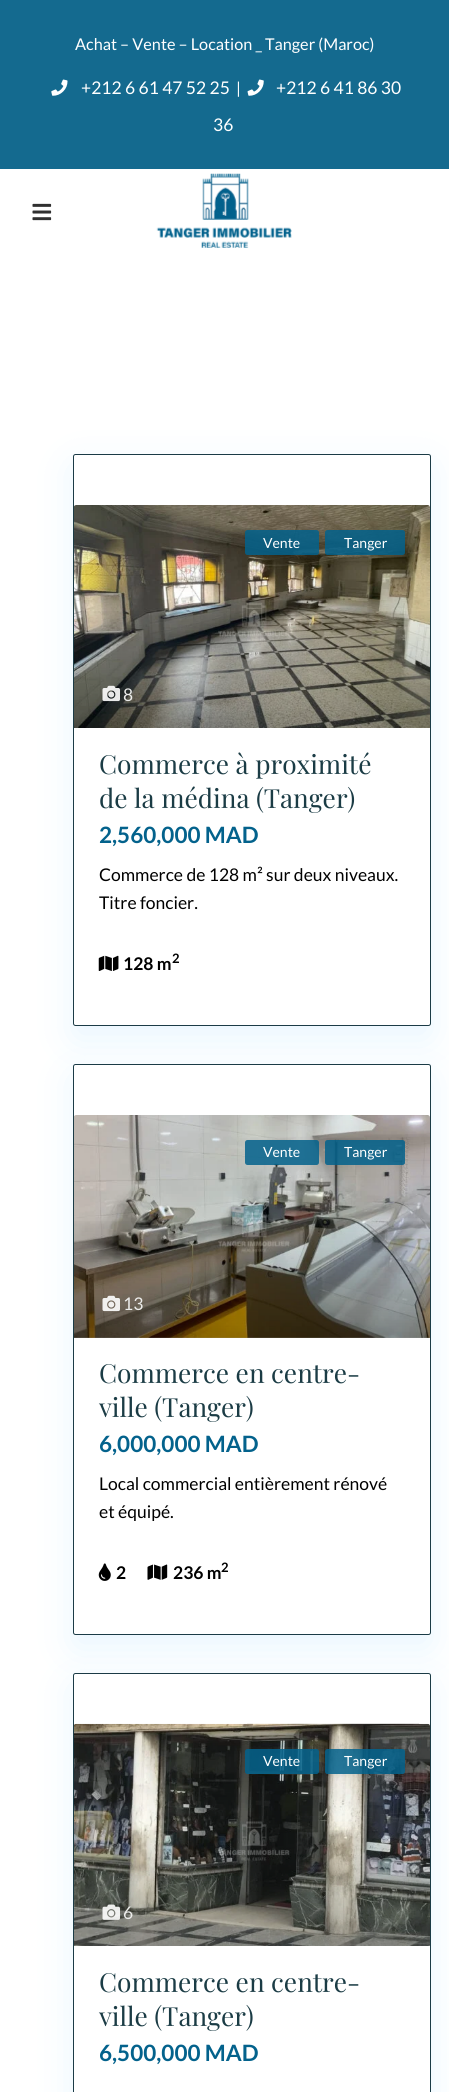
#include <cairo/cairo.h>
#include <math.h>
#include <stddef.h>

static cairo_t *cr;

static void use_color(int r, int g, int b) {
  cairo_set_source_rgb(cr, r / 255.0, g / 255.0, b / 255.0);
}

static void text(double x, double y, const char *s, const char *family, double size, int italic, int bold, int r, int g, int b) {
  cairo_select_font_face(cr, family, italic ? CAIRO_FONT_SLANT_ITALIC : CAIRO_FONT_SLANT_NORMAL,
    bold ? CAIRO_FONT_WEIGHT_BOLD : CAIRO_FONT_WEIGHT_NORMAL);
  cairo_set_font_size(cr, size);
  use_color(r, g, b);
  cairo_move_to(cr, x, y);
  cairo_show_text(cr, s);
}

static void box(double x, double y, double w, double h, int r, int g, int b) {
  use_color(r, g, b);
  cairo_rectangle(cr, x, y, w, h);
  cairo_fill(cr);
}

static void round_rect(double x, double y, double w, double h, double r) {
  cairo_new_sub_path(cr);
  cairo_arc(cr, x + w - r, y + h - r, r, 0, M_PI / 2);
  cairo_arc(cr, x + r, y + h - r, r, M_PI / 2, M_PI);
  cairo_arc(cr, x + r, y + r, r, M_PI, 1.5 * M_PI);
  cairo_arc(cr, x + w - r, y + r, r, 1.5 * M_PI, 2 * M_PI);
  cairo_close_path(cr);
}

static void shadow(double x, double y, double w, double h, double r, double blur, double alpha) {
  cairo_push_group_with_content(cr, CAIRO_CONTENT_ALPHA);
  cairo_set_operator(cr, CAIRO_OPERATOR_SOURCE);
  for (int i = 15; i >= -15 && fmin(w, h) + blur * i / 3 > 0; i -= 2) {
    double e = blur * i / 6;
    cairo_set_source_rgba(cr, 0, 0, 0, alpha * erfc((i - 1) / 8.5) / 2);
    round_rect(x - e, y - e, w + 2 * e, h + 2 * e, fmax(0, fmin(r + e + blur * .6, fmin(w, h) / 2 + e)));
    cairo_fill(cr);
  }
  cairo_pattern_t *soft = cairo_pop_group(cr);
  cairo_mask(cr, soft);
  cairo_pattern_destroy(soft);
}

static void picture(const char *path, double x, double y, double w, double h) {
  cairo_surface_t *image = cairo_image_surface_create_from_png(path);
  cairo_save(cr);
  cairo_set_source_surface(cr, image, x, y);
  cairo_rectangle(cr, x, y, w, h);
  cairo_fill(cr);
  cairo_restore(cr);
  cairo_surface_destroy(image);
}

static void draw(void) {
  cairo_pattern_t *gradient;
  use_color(255, 255, 255);
  cairo_paint(cr);
  box(0, 0, 449, 169, 20, 106, 143);
  picture("img_01.png", 51, 79, 17, 17);
  picture("img_02.png", 247, 79, 17, 17);
  picture("img_03.png", 32, 203, 20, 18);
  picture("img_04.png", 156, 173, 136, 75);
  cairo_save(cr);
  cairo_set_fill_rule(cr, CAIRO_FILL_RULE_EVEN_ODD);
  cairo_new_path(cr);
  cairo_move_to(cr, 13, 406);
  cairo_line_to(cr, 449, 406);
  cairo_line_to(cr, 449, 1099);
  cairo_line_to(cr, 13, 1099);
  cairo_close_path(cr);
  cairo_move_to(cr, 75.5, 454);
  cairo_line_to(cr, 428.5, 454);
  cairo_curve_to(cr, 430, 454, 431, 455, 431, 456.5);
  cairo_line_to(cr, 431, 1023.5);
  cairo_curve_to(cr, 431, 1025, 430, 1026, 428.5, 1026);
  cairo_line_to(cr, 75.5, 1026);
  cairo_curve_to(cr, 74, 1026, 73, 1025, 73, 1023.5);
  cairo_line_to(cr, 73, 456.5);
  cairo_curve_to(cr, 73, 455, 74, 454, 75.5, 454);
  cairo_close_path(cr);
  cairo_clip(cr);
  use_color(7, 152, 255);
  shadow(73, 466, 358, 573, 2.5, 19.5, 0.09);
  cairo_restore(cr);
  round_rect(73.5, 454.5, 357, 571, 2);
  use_color(27, 59, 70);
  cairo_set_line_width(cr, 1);
  cairo_stroke(cr);
  picture("img_05.png", 74, 505, 356, 223);
  cairo_set_source_rgba(cr, 0.012, 0.384, 0.549, 0.85);
  round_rect(245, 530, 74, 25, 2.5);
  cairo_fill(cr);
  round_rect(325, 530, 80, 25, 2.5);
  cairo_fill(cr);
  gradient = cairo_pattern_create_linear(252, 728, 252, 505);
  cairo_pattern_add_color_stop_rgba(gradient, 0, 0, 0, 0, 0.34);
  cairo_pattern_add_color_stop_rgba(gradient, 0.56, 0, 0, 0, 0);
  cairo_set_source(cr, gradient);
  cairo_pattern_destroy(gradient);
  cairo_rectangle(cr, 74, 611, 356, 117);
  cairo_fill(cr);
  picture("img_06.png", 102, 685, 18, 17);
  picture("img_07.png", 98, 955, 21, 16);
  use_color(7, 152, 255);
  shadow(73, 1076, 358, 572, 2.5, 19.5, 0.09);
  use_color(255, 255, 255);
  round_rect(73.5, 1064.5, 357, 570, 2);
  cairo_fill_preserve(cr);
  use_color(27, 59, 70);
  cairo_stroke(cr);
  picture("img_08.png", 74, 1115, 356, 223);
  cairo_set_source_rgba(cr, 0.012, 0.384, 0.549, 0.85);
  round_rect(245, 1140, 74, 25, 2.5);
  cairo_fill(cr);
  round_rect(325, 1140, 80, 25, 2.5);
  cairo_fill(cr);
  gradient = cairo_pattern_create_linear(252, 1338, 252, 1115);
  cairo_pattern_add_color_stop_rgba(gradient, 0, 0, 0, 0, 0.34);
  cairo_pattern_add_color_stop_rgba(gradient, 0.56, 0, 0, 0, 0);
  cairo_set_source(cr, gradient);
  cairo_pattern_destroy(gradient);
  cairo_rectangle(cr, 74, 1221, 356, 117);
  cairo_fill(cr);
  picture("img_09.png", 102, 1295, 18, 17);
  picture("img_10.png", 98, 1563, 13, 18);
  picture("img_11.png", 147, 1564, 21, 16);
  use_color(7, 152, 255);
  shadow(73, 1685, 358, 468, 2.5, 19.5, 0.09);
  use_color(255, 255, 255);
  round_rect(73.5, 1673.5, 357, 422, 2);
  cairo_fill_preserve(cr);
  use_color(27, 59, 70);
  cairo_stroke(cr);
  picture("img_12.png", 74, 1723, 356, 223);
  cairo_set_source_rgba(cr, 0.012, 0.384, 0.549, 0.85);
  round_rect(245, 1749, 74, 25, 2.5);
  cairo_fill(cr);
  cairo_save(cr);
  cairo_set_fill_rule(cr, CAIRO_FILL_RULE_EVEN_ODD);
  cairo_new_path(cr);
  cairo_move_to(cr, 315, 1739);
  cairo_line_to(cr, 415, 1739);
  cairo_line_to(cr, 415, 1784);
  cairo_line_to(cr, 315, 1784);
  cairo_close_path(cr);
  cairo_move_to(cr, 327.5, 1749);
  cairo_line_to(cr, 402.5, 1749);
  cairo_curve_to(cr, 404, 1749, 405, 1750, 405, 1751.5);
  cairo_line_to(cr, 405, 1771.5);
  cairo_curve_to(cr, 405, 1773, 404, 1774, 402.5, 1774);
  cairo_line_to(cr, 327.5, 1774);
  cairo_curve_to(cr, 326, 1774, 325, 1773, 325, 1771.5);
  cairo_line_to(cr, 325, 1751.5);
  cairo_curve_to(cr, 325, 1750, 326, 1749, 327.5, 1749);
  cairo_close_path(cr);
  cairo_clip(cr);
  use_color(0, 0, 0);
  shadow(325, 1749, 80, 25, 2.5, 3, 0.1);
  cairo_restore(cr);
  round_rect(325, 1749, 80, 25, 2.5);
  cairo_fill(cr);
  gradient = cairo_pattern_create_linear(252, 1946, 252, 1724);
  cairo_pattern_add_color_stop_rgba(gradient, 0, 0, 0, 0, 0.34);
  cairo_pattern_add_color_stop_rgba(gradient, 0.56, 0, 0, 0, 0);
  cairo_set_source(cr, gradient);
  cairo_pattern_destroy(gradient);
  cairo_rectangle(cr, 74, 1830, 356, 116);
  cairo_fill(cr);
  picture("img_13.png", 102, 1904, 18, 16);
  text(75, 50, "Achat – Vente – Location _ Tanger (Maroc)", "Lato", 16.25, 0, 0, 255, 255, 255);
  text(81, 94, "+212 6 61 47 52 25", "Lato", 17.5, 0, 0, 255, 255, 255);
  text(236, 94, "|", "Lato", 16.25, 0, 0, 255, 255, 255);
  text(276, 94, "+212 6 41 86 30", "Lato", 17.5, 0, 0, 255, 255, 255);
  text(213, 131, "36", "Lato", 17.5, 0, 0, 255, 255, 255);
  text(263, 548, "Vente", "Lato", 14, 0, 0, 255, 255, 255);
  text(344, 548, "Tanger", "Lato", 14, 0, 0, 255, 255, 255);
  text(123, 701, "8", "Lato", 17.5, 0, 0, 236, 236, 235);
  text(99, 774, "Commerce à proximité", "Playfair Display", 26.25, 0, 0, 27, 60, 69);
  text(99, 808, "de la médina (Tanger)", "Playfair Display", 26.25, 0, 0, 27, 60, 69);
  text(99, 843, "2,560,000 MAD", "Lato", 22.5, 0, 1, 3, 98, 140);
  text(99, 881, "Commerce de 128 m² sur deux niveaux.", "Lato", 17.5, 0, 0, 0, 0, 0);
  text(99, 909, "Titre foncier.", "Lato", 17.5, 0, 0, 0, 0, 0);
  text(123, 970, "128 m", "Lato", 17.5, 0, 1, 0, 0, 0);
  text(172, 963, "2", "Lato", 13, 0, 1, 0, 0, 0);
  text(263, 1157, "Vente", "Lato", 14, 0, 0, 255, 255, 255);
  text(344, 1157, "Tanger", "Lato", 14, 0, 0, 255, 255, 255);
  text(123, 1310, "13", "Lato", 17.5, 0, 0, 236, 236, 235);
  text(99, 1383, "Commerce en centre-", "Playfair Display", 26.25, 0, 0, 27, 60, 69);
  text(99, 1417, "ville (Tanger)", "Playfair Display", 26.25, 0, 0, 27, 60, 69);
  text(99, 1452, "6,000,000 MAD", "Lato", 22.5, 0, 1, 3, 98, 140);
  text(99, 1490, "Local commercial entièrement rénové", "Lato", 17.5, 0, 0, 0, 0, 0);
  text(99, 1518, "et équipé.", "Lato", 17.5, 0, 0, 0, 0, 0);
  text(116, 1579, "2", "Lato", 17.5, 0, 1, 0, 0, 0);
  text(173, 1579, "236 m", "Lato", 17.5, 0, 1, 0, 0, 0);
  text(221, 1572, "2", "Lato", 13, 0, 1, 0, 0, 0);
  text(263, 1766, "Vente", "Lato", 14, 0, 0, 255, 255, 255);
  text(344, 1766, "Tanger", "Lato", 14, 0, 0, 255, 255, 255);
  text(123, 1919, "6", "Lato", 17.5, 0, 0, 236, 236, 235);
  text(99, 1992, "Commerce en centre-", "Playfair Display", 26.25, 0, 0, 27, 60, 69);
  text(99, 2026, "ville (Tanger)", "Playfair Display", 26.25, 0, 0, 27, 60, 69);
  text(99, 2061, "6,500,000 MAD", "Lato", 22.5, 0, 1, 3, 98, 140);
}

int main(void) {
  cairo_surface_t *surface = cairo_image_surface_create(CAIRO_FORMAT_RGB24, 449, 2092);
  cr = cairo_create(surface);
  cairo_font_options_t *options = cairo_font_options_create();
  cairo_font_options_set_hint_metrics(options, CAIRO_HINT_METRICS_OFF);
  cairo_font_options_set_hint_style(options, CAIRO_HINT_STYLE_NONE);
  cairo_set_font_options(cr, options);
  cairo_set_miter_limit(cr, 4);
  draw();
  cairo_surface_write_to_png(surface, "out.png");
  cairo_font_options_destroy(options);
  cairo_destroy(cr);
  cairo_surface_destroy(surface);
  return 0;
}
